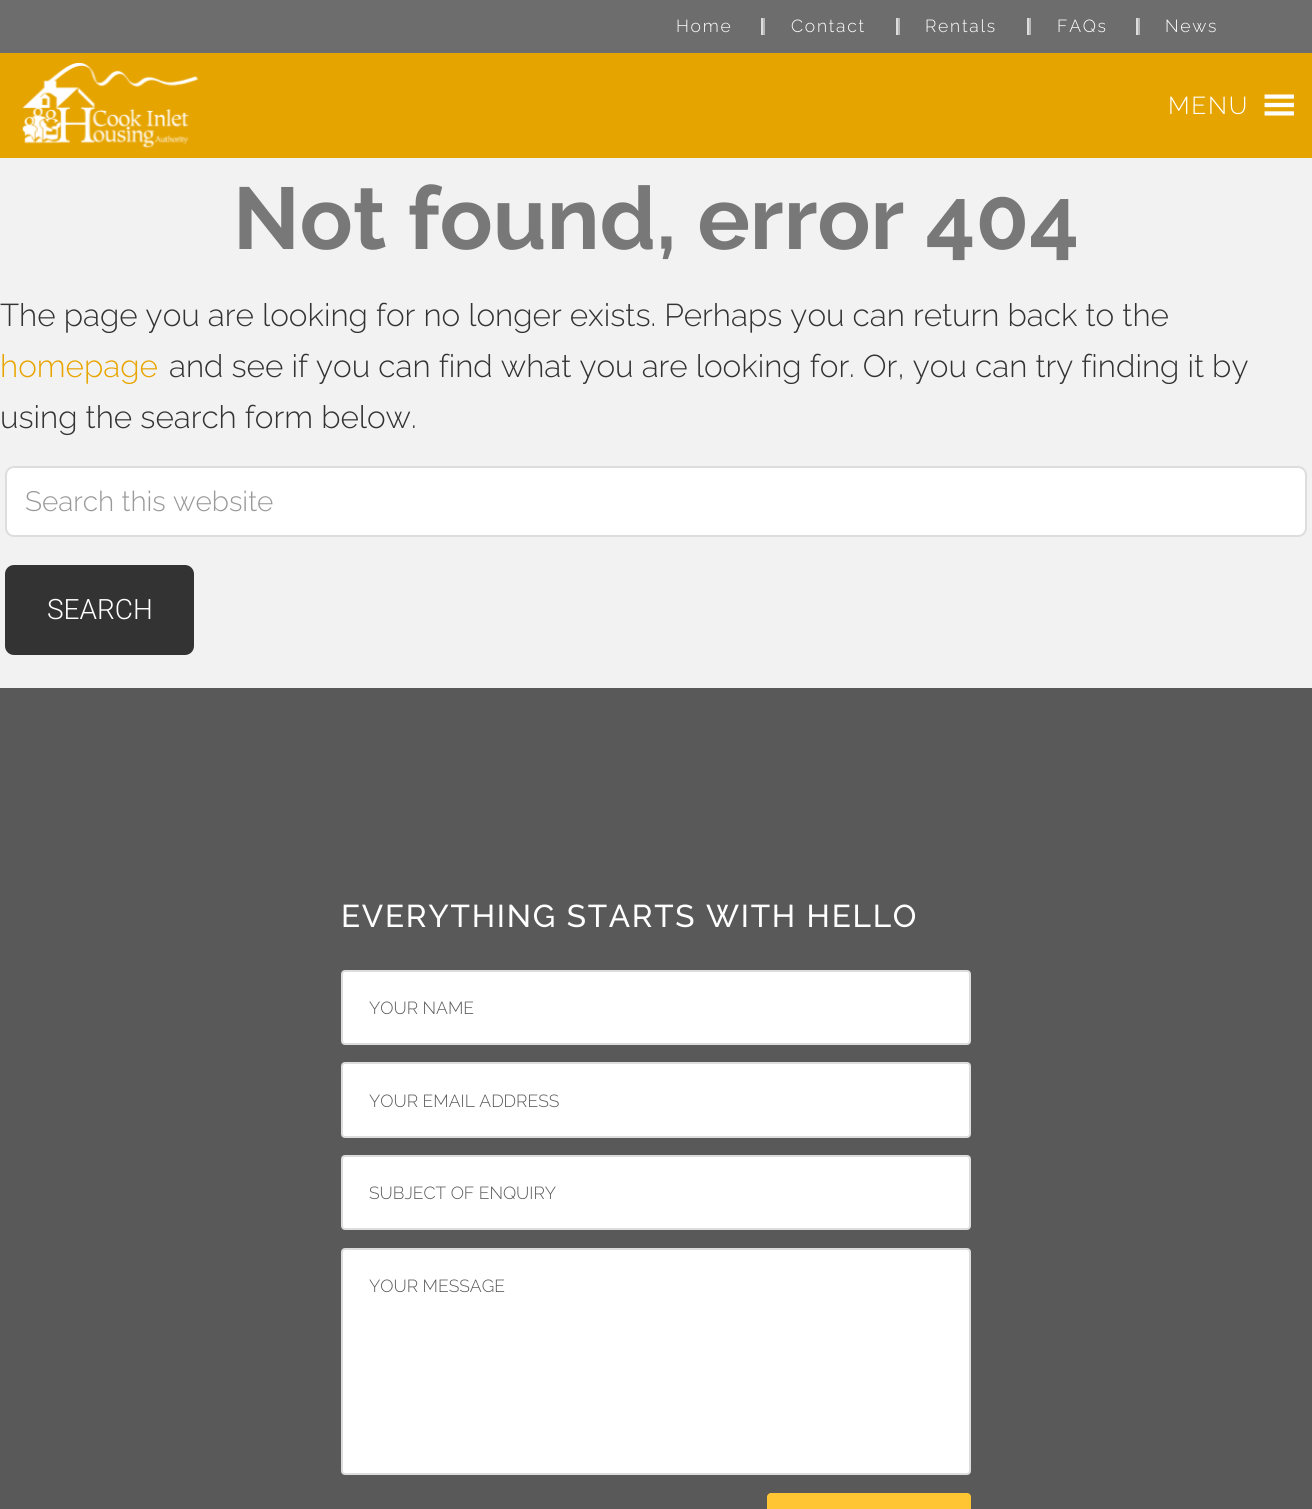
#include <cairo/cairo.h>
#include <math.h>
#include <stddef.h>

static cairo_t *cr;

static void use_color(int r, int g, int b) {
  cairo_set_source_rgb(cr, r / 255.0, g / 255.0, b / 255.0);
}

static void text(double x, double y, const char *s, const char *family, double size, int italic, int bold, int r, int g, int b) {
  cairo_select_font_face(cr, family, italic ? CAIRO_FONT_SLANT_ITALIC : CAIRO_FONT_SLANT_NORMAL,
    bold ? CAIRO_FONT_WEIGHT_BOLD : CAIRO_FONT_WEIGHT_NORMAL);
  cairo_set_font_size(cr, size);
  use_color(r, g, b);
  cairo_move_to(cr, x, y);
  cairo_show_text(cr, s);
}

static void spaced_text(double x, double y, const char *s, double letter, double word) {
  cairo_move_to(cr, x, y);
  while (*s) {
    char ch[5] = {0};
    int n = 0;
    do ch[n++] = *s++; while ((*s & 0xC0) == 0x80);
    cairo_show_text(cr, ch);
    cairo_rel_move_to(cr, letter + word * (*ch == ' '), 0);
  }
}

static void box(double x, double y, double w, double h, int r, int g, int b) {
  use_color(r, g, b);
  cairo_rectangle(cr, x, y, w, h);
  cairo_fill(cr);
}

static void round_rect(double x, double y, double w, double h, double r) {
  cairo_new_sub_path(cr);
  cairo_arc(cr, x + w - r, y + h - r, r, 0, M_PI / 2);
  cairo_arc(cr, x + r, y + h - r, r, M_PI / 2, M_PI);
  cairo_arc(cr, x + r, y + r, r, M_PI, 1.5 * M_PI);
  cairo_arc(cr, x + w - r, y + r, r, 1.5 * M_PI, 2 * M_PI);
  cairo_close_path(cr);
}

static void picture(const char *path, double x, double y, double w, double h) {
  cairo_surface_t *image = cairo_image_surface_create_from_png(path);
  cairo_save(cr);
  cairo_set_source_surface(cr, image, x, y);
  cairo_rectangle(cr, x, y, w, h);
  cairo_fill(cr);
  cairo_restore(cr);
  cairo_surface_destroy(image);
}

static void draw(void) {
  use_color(242, 242, 242);
  cairo_paint(cr);
  box(0, 53, 1312, 105, 230, 164, 0);
  box(0, 0, 1312, 53, 109, 109, 109);
  box(763, 18, 2, 17, 182, 182, 182);
  box(761, 18, 2, 17, 221, 221, 221);
  box(898, 18, 2, 17, 182, 182, 182);
  box(896, 18, 2, 17, 221, 221, 221);
  box(1029, 18, 2, 17, 182, 182, 182);
  box(1027, 18, 2, 17, 221, 221, 221);
  box(1138, 18, 2, 17, 182, 182, 182);
  box(1136, 18, 2, 17, 221, 221, 221);
  picture("img_01.png", 22, 63, 176, 85);
  picture("img_02.png", 1264, 94, 30, 22);
  use_color(255, 255, 255);
  round_rect(6, 467, 1300, 69, 8);
  cairo_fill_preserve(cr);
  use_color(221, 221, 221);
  cairo_stroke(cr);
  use_color(51, 51, 51);
  round_rect(5, 565, 189, 90, 9);
  cairo_fill(cr);
  box(0, 688, 1312, 821, 89, 89, 89);
  use_color(255, 255, 255);
  round_rect(342, 971, 628, 73, 3);
  cairo_fill_preserve(cr);
  use_color(221, 221, 221);
  cairo_stroke(cr);
  use_color(255, 255, 255);
  round_rect(342, 1063, 628, 74, 3);
  cairo_fill_preserve(cr);
  use_color(221, 221, 221);
  cairo_stroke(cr);
  use_color(255, 255, 255);
  round_rect(342, 1156, 628, 73, 3);
  cairo_fill_preserve(cr);
  use_color(221, 221, 221);
  cairo_stroke(cr);
  use_color(255, 255, 255);
  round_rect(342, 1249, 628, 225, 3);
  cairo_fill_preserve(cr);
  use_color(221, 221, 221);
  cairo_stroke(cr);
  use_color(255, 197, 51);
  round_rect(767, 1493, 204, 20, 4);
  cairo_fill(cr);
  cairo_select_font_face(cr, "Raleway Light", CAIRO_FONT_SLANT_NORMAL, CAIRO_FONT_WEIGHT_NORMAL);
  cairo_set_font_size(cr, 17.5);
  use_color(255, 255, 255);
  spaced_text(676, 32, "Home", 1.75, 0);
  spaced_text(791, 32, "Contact", 1.75, 0);
  spaced_text(925, 32, "Rentals", 1.75, 0);
  spaced_text(1057, 32, "FAQs", 1.75, 0);
  spaced_text(1165, 32, "News", 1.75, 0);
  cairo_set_font_size(cr, 24.5);
  spaced_text(1168, 114, "MENU", 1.75, 0);
  text(233, 249, "Not found, error 404", "Raleway", 87.5, 0, 1, 120, 120, 120);
  text(0, 326, "The page you are looking for no longer exists. Perhaps you can return back to the", "Raleway Light", 31.5, 0, 0, 51, 51, 51);
  text(0, 377, "homepage", "Raleway Light", 31.5, 0, 0, 232, 165, 0);
  text(169, 377, "and see if you can find what you are looking for. Or, you can try finding it by", "Raleway Light", 31.5, 0, 0, 51, 51, 51);
  text(0, 428, "using the search form below.", "Raleway Light", 31.5, 0, 0, 51, 51, 51);
  text(25, 511, "Search this website", "Raleway Light", 28, 0, 0, 153, 153, 153);
  text(47, 619, "SEARCH", "Roboto Light", 28, 0, 0, 255, 255, 255);
  cairo_select_font_face(cr, "Raleway Medium", CAIRO_FONT_SLANT_NORMAL, CAIRO_FONT_WEIGHT_NORMAL);
  cairo_set_font_size(cr, 31.5);
  spaced_text(341, 927, "EVERYTHING STARTS WITH HELLO", 1.75, 0);
  text(369, 1014, "YOUR NAME", "Raleway Light", 17.5, 0, 0, 89, 89, 89);
  text(369, 1107, "YOUR EMAIL ADDRESS", "Raleway Light", 17.5, 0, 0, 89, 89, 89);
  text(369, 1199, "SUBJECT OF ENQUIRY", "Raleway Light", 17.5, 0, 0, 89, 89, 89);
  text(369, 1292, "YOUR MESSAGE", "Raleway Light", 17.5, 0, 0, 89, 89, 89);
}

int main(void) {
  cairo_surface_t *surface = cairo_image_surface_create(CAIRO_FORMAT_RGB24, 1312, 1509);
  cr = cairo_create(surface);
  cairo_font_options_t *options = cairo_font_options_create();
  cairo_font_options_set_hint_metrics(options, CAIRO_HINT_METRICS_OFF);
  cairo_font_options_set_hint_style(options, CAIRO_HINT_STYLE_NONE);
  cairo_set_font_options(cr, options);
  cairo_set_miter_limit(cr, 4);
  draw();
  cairo_surface_write_to_png(surface, "out.png");
  cairo_font_options_destroy(options);
  cairo_destroy(cr);
  cairo_surface_destroy(surface);
  return 0;
}
